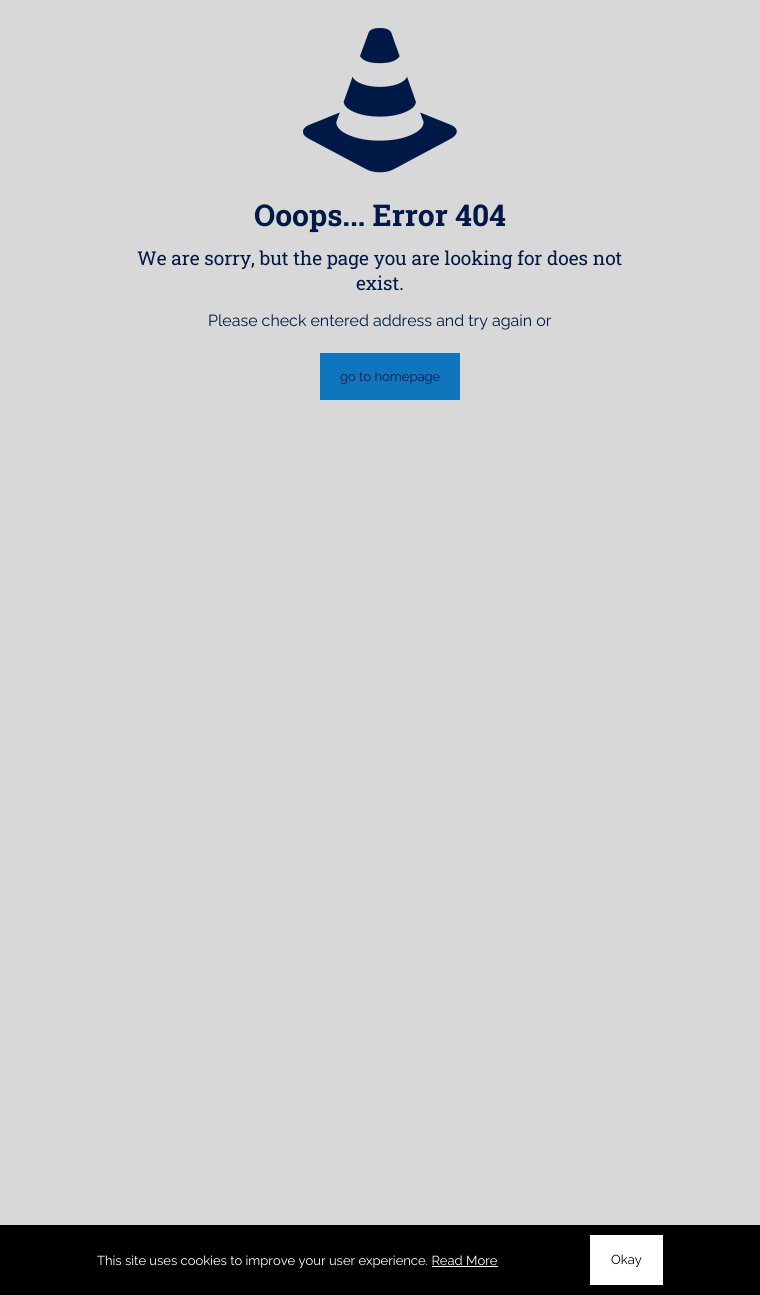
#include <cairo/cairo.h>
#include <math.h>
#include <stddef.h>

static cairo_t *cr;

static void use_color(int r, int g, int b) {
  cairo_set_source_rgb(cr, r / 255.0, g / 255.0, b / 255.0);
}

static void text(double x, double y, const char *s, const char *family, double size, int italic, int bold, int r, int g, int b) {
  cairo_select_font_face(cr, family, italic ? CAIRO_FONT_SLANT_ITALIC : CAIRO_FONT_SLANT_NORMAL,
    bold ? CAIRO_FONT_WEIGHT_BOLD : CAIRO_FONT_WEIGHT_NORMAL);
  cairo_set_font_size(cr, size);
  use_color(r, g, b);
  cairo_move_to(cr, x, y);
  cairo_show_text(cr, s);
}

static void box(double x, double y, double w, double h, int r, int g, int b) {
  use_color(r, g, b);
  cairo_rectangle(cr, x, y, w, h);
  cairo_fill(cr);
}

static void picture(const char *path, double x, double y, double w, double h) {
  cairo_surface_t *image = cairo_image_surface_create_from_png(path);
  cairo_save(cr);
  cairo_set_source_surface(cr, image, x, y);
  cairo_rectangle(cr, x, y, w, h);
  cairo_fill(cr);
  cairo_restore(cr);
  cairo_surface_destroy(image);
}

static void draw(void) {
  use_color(216, 216, 216);
  cairo_paint(cr);
  picture("img_01.png", 303, 28, 154, 145);
  box(320, 353, 140, 47, 15, 117, 188);
  box(0, 1225, 760, 70, 0, 0, 0);
  box(432, 1266, 66, 1, 255, 255, 255);
  box(590, 1235, 73, 50, 255, 255, 255);
  text(254, 226, "Ooops... Error 404", "Roboto Slab", 30, 0, 1, 0, 25, 70);
  text(137, 265, "We are sorry, but the page you are looking for does not", "Roboto Slab", 19, 0, 0, 0, 25, 70);
  text(356, 290, "exist.", "Roboto Slab", 19, 0, 0, 0, 25, 70);
  text(208, 326, "Please check entered address and try again or", "Raleway", 16, 0, 0, 0, 25, 70);
  text(340, 381, "go to homepage", "Raleway", 13, 0, 0, 0, 25, 70);
  text(97, 1265, "This site uses cookies to improve your user experience. Read More", "Raleway", 13, 0, 0, 255, 255, 255);
  text(611, 1264, "Okay", "Raleway", 13, 0, 0, 0, 0, 0);
}

int main(void) {
  cairo_surface_t *surface = cairo_image_surface_create(CAIRO_FORMAT_RGB24, 760, 1295);
  cr = cairo_create(surface);
  cairo_font_options_t *options = cairo_font_options_create();
  cairo_font_options_set_hint_metrics(options, CAIRO_HINT_METRICS_OFF);
  cairo_font_options_set_hint_style(options, CAIRO_HINT_STYLE_NONE);
  cairo_set_font_options(cr, options);
  cairo_set_miter_limit(cr, 4);
  draw();
  cairo_surface_write_to_png(surface, "out.png");
  cairo_font_options_destroy(options);
  cairo_destroy(cr);
  cairo_surface_destroy(surface);
  return 0;
}
